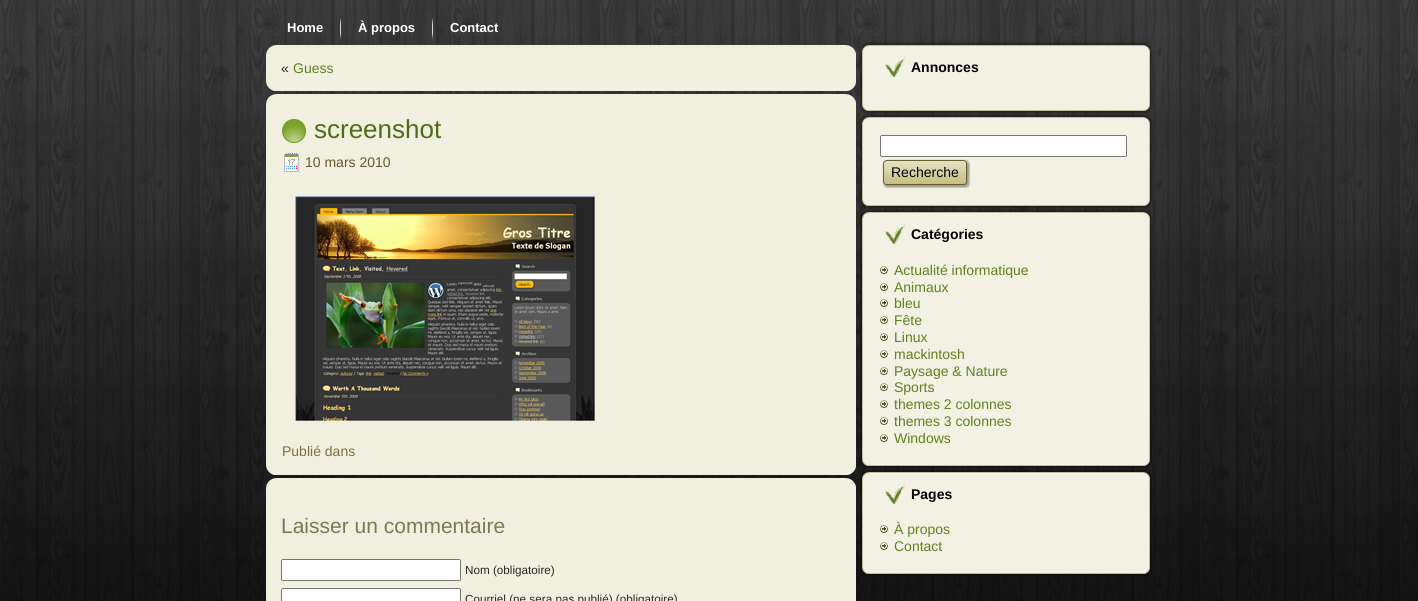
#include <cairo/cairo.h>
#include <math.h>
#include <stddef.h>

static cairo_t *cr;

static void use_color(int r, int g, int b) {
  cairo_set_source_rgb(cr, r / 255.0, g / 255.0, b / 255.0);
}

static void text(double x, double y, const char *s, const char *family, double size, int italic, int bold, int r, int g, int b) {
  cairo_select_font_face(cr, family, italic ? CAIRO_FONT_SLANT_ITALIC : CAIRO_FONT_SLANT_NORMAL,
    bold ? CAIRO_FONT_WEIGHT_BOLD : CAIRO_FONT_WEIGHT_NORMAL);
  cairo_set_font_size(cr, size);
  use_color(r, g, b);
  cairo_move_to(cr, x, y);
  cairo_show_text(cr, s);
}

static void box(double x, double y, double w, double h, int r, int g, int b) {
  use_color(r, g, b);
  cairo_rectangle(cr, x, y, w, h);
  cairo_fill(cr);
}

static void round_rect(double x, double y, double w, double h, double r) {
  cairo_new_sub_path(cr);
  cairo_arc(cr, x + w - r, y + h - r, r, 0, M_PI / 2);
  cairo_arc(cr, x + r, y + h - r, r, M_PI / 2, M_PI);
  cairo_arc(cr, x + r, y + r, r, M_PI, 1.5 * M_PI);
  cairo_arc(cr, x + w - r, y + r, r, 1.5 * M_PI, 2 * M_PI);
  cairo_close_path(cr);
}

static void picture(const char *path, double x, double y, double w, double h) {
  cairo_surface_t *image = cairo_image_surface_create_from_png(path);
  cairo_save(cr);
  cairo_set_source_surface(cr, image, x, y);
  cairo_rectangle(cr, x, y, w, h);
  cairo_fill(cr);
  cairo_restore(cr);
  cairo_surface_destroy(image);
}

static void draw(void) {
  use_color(255, 255, 255);
  cairo_paint(cr);
  picture("img_01.png", 0, 0, 1418, 601);
  picture("img_02.png", 340, 18, 1, 21);
  picture("img_03.png", 432, 18, 1, 21);
  picture("img_04.png", 266, 45, 10, 10);
  box(276, 45, 570, 10, 241, 239, 223);
  picture("img_05.png", 846, 45, 10, 10);
  box(266, 55, 10, 26, 241, 239, 223);
  box(276, 55, 580, 26, 241, 239, 223);
  picture("img_06.png", 266, 81, 10, 10);
  box(276, 81, 570, 10, 241, 239, 223);
  picture("img_07.png", 846, 81, 10, 10);
  picture("img_08.png", 266, 94, 10, 10);
  box(276, 94, 570, 10, 241, 239, 223);
  picture("img_09.png", 846, 94, 10, 10);
  box(266, 104, 10, 361, 241, 239, 223);
  box(276, 104, 580, 361, 241, 239, 223);
  picture("img_10.png", 282, 119, 24, 24);
  picture("img_11.png", 284, 153, 15, 19);
  picture("img_12.png", 295, 196, 300, 225);
  picture("img_13.png", 266, 465, 10, 10);
  box(276, 465, 570, 10, 241, 239, 223);
  picture("img_14.png", 846, 465, 10, 10);
  picture("img_15.png", 266, 478, 10, 10);
  box(276, 478, 570, 10, 241, 239, 223);
  picture("img_16.png", 846, 478, 10, 10);
  box(266, 488, 10, 113, 241, 239, 223);
  box(276, 488, 580, 113, 241, 239, 223);
  use_color(255, 255, 255);
  round_rect(281.5, 559.5, 179, 21, 1.5);
  cairo_fill_preserve(cr);
  use_color(118, 118, 118);
  cairo_set_line_width(cr, 1);
  cairo_stroke(cr);
  use_color(255, 255, 255);
  round_rect(281.5, 588.5, 179, 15, 1.5);
  cairo_fill_preserve(cr);
  use_color(118, 118, 118);
  cairo_stroke(cr);
  picture("img_17.png", 859, 42, 19, 19);
  picture("img_18.png", 878, 42, 256, 19);
  picture("img_19.png", 1134, 42, 19, 19);
  picture("img_20.png", 859, 61, 19, 34);
  box(878, 61, 256, 34, 242, 241, 227);
  picture("img_21.png", 1134, 61, 19, 34);
  picture("img_22.png", 885, 57, 20, 20);
  picture("img_23.png", 859, 95, 19, 19);
  picture("img_24.png", 878, 95, 256, 19);
  picture("img_25.png", 1134, 95, 19, 19);
  picture("img_26.png", 859, 114, 19, 19);
  picture("img_27.png", 878, 114, 256, 19);
  picture("img_28.png", 1134, 114, 19, 19);
  picture("img_29.png", 859, 133, 19, 57);
  box(878, 133, 256, 57, 242, 241, 227);
  picture("img_30.png", 1134, 133, 19, 57);
  use_color(255, 255, 255);
  round_rect(880.5, 135.5, 246, 21, 1.5);
  cairo_fill_preserve(cr);
  use_color(118, 118, 118);
  cairo_stroke(cr);
  picture("img_31.png", 882, 159, 78, 29);
  picture("img_32.png", 960, 159, 10, 29);
  picture("img_33.png", 859, 190, 19, 19);
  picture("img_34.png", 878, 190, 256, 19);
  picture("img_35.png", 1134, 190, 19, 19);
  picture("img_36.png", 859, 209, 19, 19);
  picture("img_37.png", 878, 209, 256, 19);
  picture("img_38.png", 1134, 209, 19, 19);
  picture("img_39.png", 859, 228, 19, 222);
  box(878, 228, 256, 222, 242, 241, 227);
  picture("img_22.png", 885, 224, 20, 20);
  picture("img_40.png", 880, 266, 8, 8);
  picture("img_40.png", 880, 283, 8, 8);
  picture("img_40.png", 880, 299, 8, 8);
  picture("img_40.png", 880, 316, 8, 8);
  picture("img_40.png", 880, 333, 8, 8);
  picture("img_40.png", 880, 350, 8, 8);
  picture("img_40.png", 880, 367, 8, 8);
  picture("img_40.png", 880, 383, 8, 8);
  picture("img_40.png", 880, 400, 8, 8);
  picture("img_40.png", 880, 417, 8, 8);
  picture("img_40.png", 880, 434, 8, 8);
  picture("img_41.png", 1134, 228, 19, 222);
  picture("img_42.png", 860, 450, 18, 18);
  picture("img_43.png", 878, 450, 256, 18);
  picture("img_44.png", 1134, 450, 18, 18);
  picture("img_45.png", 860, 470, 18, 18);
  picture("img_46.png", 878, 470, 256, 18);
  picture("img_47.png", 1134, 470, 18, 18);
  picture("img_48.png", 860, 488, 18, 70);
  box(878, 488, 256, 70, 242, 241, 227);
  picture("img_49.png", 1134, 488, 18, 70);
  picture("img_22.png", 885, 484, 20, 20);
  picture("img_40.png", 880, 525, 8, 8);
  picture("img_40.png", 880, 542, 8, 8);
  picture("img_50.png", 860, 558, 18, 18);
  picture("img_51.png", 878, 558, 256, 18);
  picture("img_52.png", 1134, 558, 18, 18);
  text(287, 32, "Home", "Liberation Sans", 13, 0, 1, 255, 255, 255);
  text(358, 32, "À propos", "Liberation Sans", 13, 0, 1, 255, 255, 255);
  text(450, 32, "Contact", "Liberation Sans", 13, 0, 1, 255, 255, 255);
  text(281, 73, "«", "Liberation Sans", 14, 0, 0, 43, 41, 29);
  text(293, 73, "Guess", "Liberation Sans", 14, 0, 0, 96, 129, 29);
  text(314, 138, "screenshot", "Liberation Sans", 26, 0, 0, 80, 108, 25);
  text(305, 167, "10 mars 2010", "Liberation Sans", 14, 0, 0, 99, 92, 44);
  text(282, 456, "Publié dans", "Liberation Sans", 14, 0, 0, 123, 115, 55);
  text(281, 533, "Laisser un commentaire", "Liberation Sans", 21, 0, 0, 125, 120, 84);
  text(465, 574, "Nom (obligatoire)", "Liberation Sans", 11.7, 0, 0, 43, 41, 29);
  text(465, 603, "Courriel (ne sera pas publié) (obligatoire)", "Liberation Sans", 11.7, 0, 0, 43, 41, 29);
  text(911, 72, "Annonces", "Liberation Sans", 14, 0, 1, 0, 0, 0);
  text(891, 177, "Recherche", "Liberation Sans", 14, 0, 0, 0, 0, 0);
  text(911, 239, "Catégories", "Liberation Sans", 14, 0, 1, 0, 0, 0);
  text(894, 275, "Actualité informatique", "Liberation Sans", 14, 0, 0, 96, 129, 29);
  text(894, 292, "Animaux", "Liberation Sans", 14, 0, 0, 96, 129, 29);
  text(894, 308, "bleu", "Liberation Sans", 14, 0, 0, 96, 129, 29);
  text(894, 325, "Fête", "Liberation Sans", 14, 0, 0, 96, 129, 29);
  text(894, 342, "Linux", "Liberation Sans", 14, 0, 0, 96, 129, 29);
  text(894, 359, "mackintosh", "Liberation Sans", 14, 0, 0, 96, 129, 29);
  text(894, 376, "Paysage & Nature", "Liberation Sans", 14, 0, 0, 96, 129, 29);
  text(894, 392, "Sports", "Liberation Sans", 14, 0, 0, 96, 129, 29);
  text(894, 409, "themes 2 colonnes", "Liberation Sans", 14, 0, 0, 96, 129, 29);
  text(894, 426, "themes 3 colonnes", "Liberation Sans", 14, 0, 0, 96, 129, 29);
  text(894, 443, "Windows", "Liberation Sans", 14, 0, 0, 96, 129, 29);
  text(911, 499, "Pages", "Liberation Sans", 14, 0, 1, 0, 0, 0);
  text(894, 534, "À propos", "Liberation Sans", 14, 0, 0, 96, 129, 29);
  text(894, 551, "Contact", "Liberation Sans", 14, 0, 0, 96, 129, 29);
}

int main(void) {
  cairo_surface_t *surface = cairo_image_surface_create(CAIRO_FORMAT_RGB24, 1418, 601);
  cr = cairo_create(surface);
  cairo_font_options_t *options = cairo_font_options_create();
  cairo_font_options_set_hint_metrics(options, CAIRO_HINT_METRICS_OFF);
  cairo_font_options_set_hint_style(options, CAIRO_HINT_STYLE_NONE);
  cairo_set_font_options(cr, options);
  cairo_set_miter_limit(cr, 4);
  draw();
  cairo_surface_write_to_png(surface, "out.png");
  cairo_font_options_destroy(options);
  cairo_destroy(cr);
  cairo_surface_destroy(surface);
  return 0;
}
